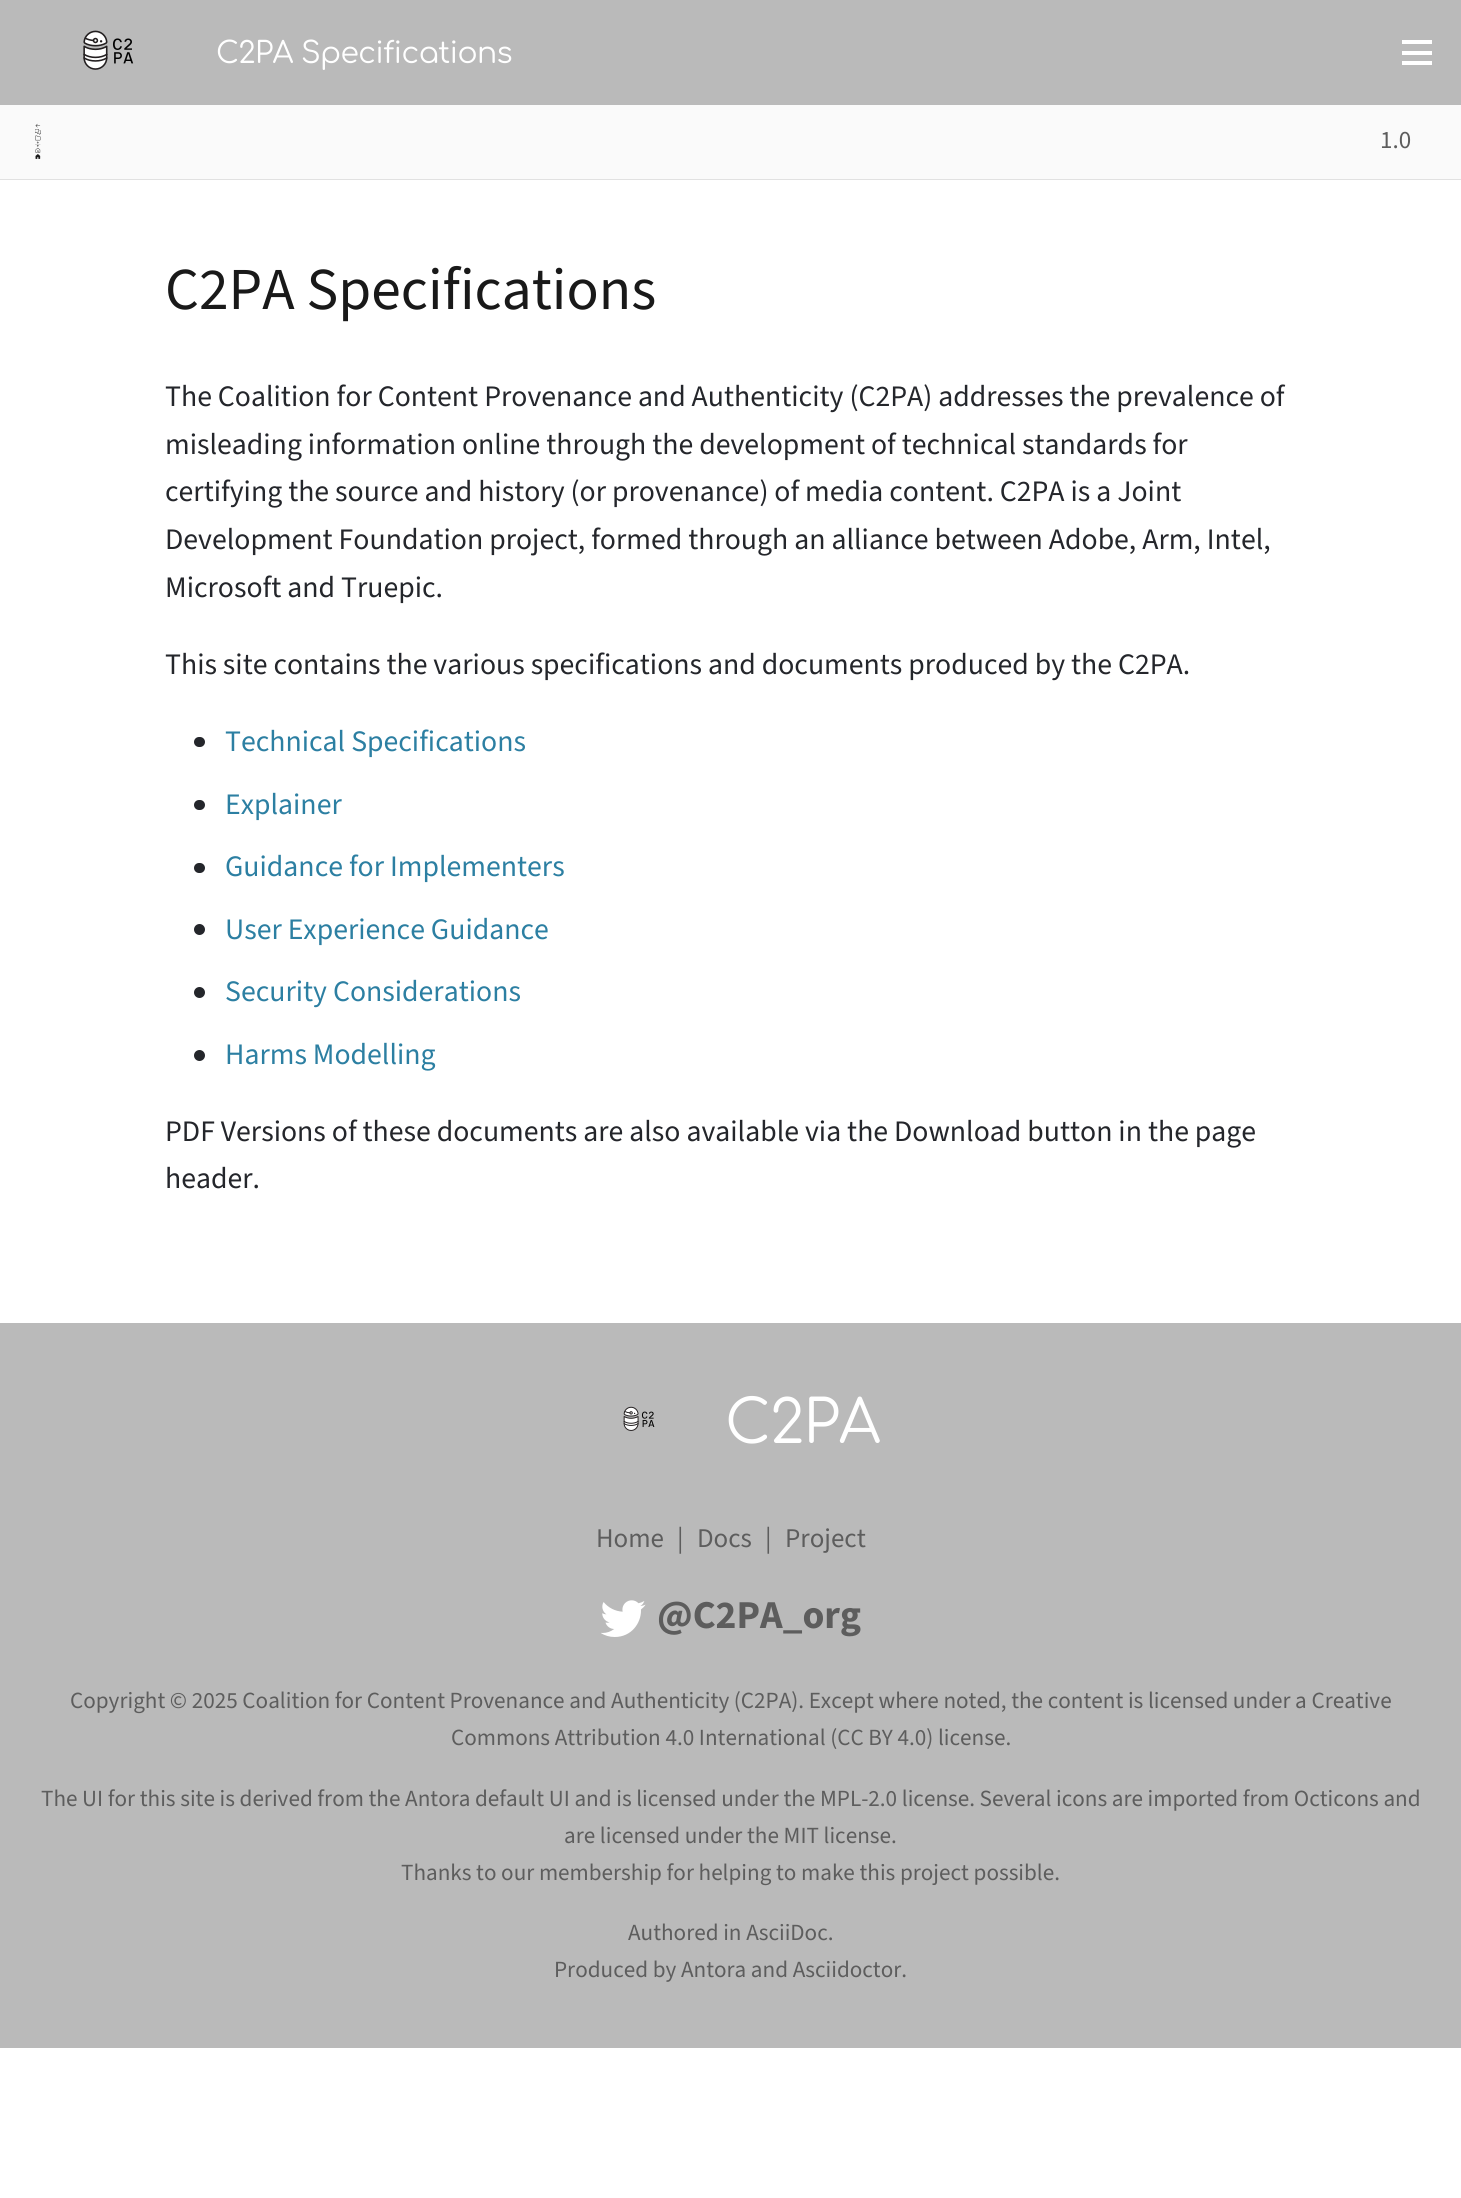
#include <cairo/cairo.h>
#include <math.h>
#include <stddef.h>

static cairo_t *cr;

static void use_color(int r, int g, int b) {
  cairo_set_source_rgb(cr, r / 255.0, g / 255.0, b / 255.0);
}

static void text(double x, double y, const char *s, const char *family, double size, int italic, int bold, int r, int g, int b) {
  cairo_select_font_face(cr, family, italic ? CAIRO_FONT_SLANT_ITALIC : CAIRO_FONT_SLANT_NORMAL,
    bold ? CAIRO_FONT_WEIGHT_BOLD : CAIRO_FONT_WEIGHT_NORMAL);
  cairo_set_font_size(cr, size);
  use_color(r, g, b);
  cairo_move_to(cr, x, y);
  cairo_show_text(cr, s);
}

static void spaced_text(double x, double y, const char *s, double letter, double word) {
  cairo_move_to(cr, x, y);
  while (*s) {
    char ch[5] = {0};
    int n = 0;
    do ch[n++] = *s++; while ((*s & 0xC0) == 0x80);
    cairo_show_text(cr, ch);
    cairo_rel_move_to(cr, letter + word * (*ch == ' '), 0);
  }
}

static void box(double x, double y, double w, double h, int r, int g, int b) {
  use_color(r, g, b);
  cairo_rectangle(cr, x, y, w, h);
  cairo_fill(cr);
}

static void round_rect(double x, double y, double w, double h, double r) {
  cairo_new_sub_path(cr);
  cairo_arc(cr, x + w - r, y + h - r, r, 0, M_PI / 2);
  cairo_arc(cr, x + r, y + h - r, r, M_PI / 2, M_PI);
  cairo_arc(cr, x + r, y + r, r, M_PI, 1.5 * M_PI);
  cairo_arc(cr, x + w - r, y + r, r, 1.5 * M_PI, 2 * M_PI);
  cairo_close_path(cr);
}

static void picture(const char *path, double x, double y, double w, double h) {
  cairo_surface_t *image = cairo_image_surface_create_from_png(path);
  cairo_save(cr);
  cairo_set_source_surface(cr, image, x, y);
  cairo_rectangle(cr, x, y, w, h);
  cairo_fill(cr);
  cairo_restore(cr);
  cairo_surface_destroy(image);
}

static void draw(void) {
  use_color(255, 255, 255);
  cairo_paint(cr);
  box(0, 0, 1461, 105, 186, 186, 186);
  picture("img_01.png", 83, 30, 51, 40);
  box(1402, 40, 30, 4, 255, 255, 255);
  box(1402, 51, 30, 4, 255, 255, 255);
  box(1402, 61, 30, 4, 255, 255, 255);
  box(0, 179, 1461, 1, 225, 225, 225);
  box(0, 105, 1461, 74, 250, 250, 250);
  picture("img_02.png", 35, 123, 6, 36);
  use_color(36, 38, 43);
  round_rect(194, 737, 11, 10, 5);
  cairo_fill(cr);
  round_rect(194, 800, 11, 10, 5);
  cairo_fill(cr);
  round_rect(194, 863, 11, 10, 5);
  cairo_fill(cr);
  cairo_arc(cr, 199.5, 929.5, 5.5, 0, 2 * M_PI);
  cairo_fill(cr);
  cairo_arc(cr, 199.5, 992.5, 5.5, 0, 2 * M_PI);
  cairo_fill(cr);
  cairo_arc(cr, 199.5, 1055.5, 5.5, 0, 2 * M_PI);
  cairo_fill(cr);
  box(0, 1323, 1461, 725, 186, 186, 186);
  picture("img_03.png", 623, 1406, 32, 25);
  picture("img_04.png", 601, 1600, 45, 37);
  cairo_select_font_face(cr, "Comfortaa", CAIRO_FONT_SLANT_NORMAL, CAIRO_FONT_WEIGHT_NORMAL);
  cairo_set_font_size(cr, 29.75);
  use_color(255, 255, 255);
  spaced_text(216, 63, "C2PA Specifications", -0.6, 0);
  text(1380, 148, "1.0", "Source Sans 3", 25, 0, 0, 93, 93, 93);
  text(165, 309, "C2PA Specifications", "Source Sans 3", 59.5, 0, 0, 25, 25, 25);
  text(165, 406, "The Coalition for Content Provenance and Authenticity (C2PA) addresses the prevalence of", "Source Sans 3", 29.75, 0, 0, 36, 38, 43);
  text(165, 454, "misleading information online through the development of technical standards for", "Source Sans 3", 29.75, 0, 0, 36, 38, 43);
  text(165, 501, "certifying the source and history (or provenance) of media content. C2PA is a Joint", "Source Sans 3", 29.75, 0, 0, 36, 38, 43);
  text(165, 549, "Development Foundation project, formed through an alliance between Adobe, Arm, Intel,", "Source Sans 3", 29.75, 0, 0, 36, 38, 43);
  text(165, 597, "Microsoft and Truepic.", "Source Sans 3", 29.75, 0, 0, 36, 38, 43);
  text(165, 674, "This site contains the various specifications and documents produced by the C2PA.", "Source Sans 3", 29.75, 0, 0, 36, 38, 43);
  text(225, 751, "Technical Specifications", "Source Sans 3", 29.75, 0, 0, 44, 127, 162);
  text(225, 814, "Explainer", "Source Sans 3", 29.75, 0, 0, 44, 127, 162);
  text(225, 876, "Guidance for Implementers", "Source Sans 3", 29.75, 0, 0, 44, 127, 162);
  text(225, 939, "User Experience Guidance", "Source Sans 3", 29.75, 0, 0, 44, 127, 162);
  text(225, 1001, "Security Considerations", "Source Sans 3", 29.75, 0, 0, 44, 127, 162);
  text(225, 1064, "Harms Modelling", "Source Sans 3", 29.75, 0, 0, 44, 127, 162);
  text(165, 1141, "PDF Versions of these documents are also available via the Download button in the page", "Source Sans 3", 29.75, 0, 0, 36, 38, 43);
  text(165, 1188, "header.", "Source Sans 3", 29.75, 0, 0, 36, 38, 43);
  cairo_select_font_face(cr, "Comfortaa", CAIRO_FONT_SLANT_NORMAL, CAIRO_FONT_WEIGHT_NORMAL);
  cairo_set_font_size(cr, 59.5);
  use_color(255, 255, 255);
  spaced_text(725, 1443, "C2PA", -1, 0);
  text(596, 1547, "Home", "Source Sans 3", 27, 0, 0, 93, 93, 93);
  text(677, 1547, "|", "Source Sans 3", 27, 0, 0, 93, 93, 93);
  text(697, 1547, "Docs", "Source Sans 3", 27, 0, 0, 93, 93, 93);
  text(765, 1547, "|", "Source Sans 3", 27, 0, 0, 93, 93, 93);
  text(785, 1547, "Project", "Source Sans 3", 27, 0, 0, 93, 93, 93);
  text(657, 1628, "@C2PA_org", "Source Sans 3", 39.5, 0, 1, 93, 93, 93);
  text(70, 1708, "Copyright © 2025 Coalition for Content Provenance and Authenticity (C2PA). Except where noted, the content is licensed under a Creative", "Source Sans 3", 23.15, 0, 0, 93, 93, 93);
  text(451, 1745, "Commons Attribution 4.0 International (CC BY 4.0) license.", "Source Sans 3", 23.15, 0, 0, 93, 93, 93);
  text(41, 1806, "The UI for this site is derived from the Antora default UI and is licensed under the MPL-2.0 license. Several icons are imported from Octicons and", "Source Sans 3", 23.15, 0, 0, 93, 93, 93);
  text(564, 1843, "are licensed under the MIT license.", "Source Sans 3", 23.15, 0, 0, 93, 93, 93);
  text(401, 1880, "Thanks to our membership for helping to make this project possible.", "Source Sans 3", 23.15, 0, 0, 93, 93, 93);
  text(628, 1940, "Authored in AsciiDoc.", "Source Sans 3", 23.15, 0, 0, 93, 93, 93);
  text(554, 1977, "Produced by Antora and Asciidoctor.", "Source Sans 3", 23.15, 0, 0, 93, 93, 93);
}

int main(void) {
  cairo_surface_t *surface = cairo_image_surface_create(CAIRO_FORMAT_RGB24, 1461, 2198);
  cr = cairo_create(surface);
  cairo_font_options_t *options = cairo_font_options_create();
  cairo_font_options_set_hint_metrics(options, CAIRO_HINT_METRICS_OFF);
  cairo_font_options_set_hint_style(options, CAIRO_HINT_STYLE_NONE);
  cairo_set_font_options(cr, options);
  cairo_set_miter_limit(cr, 4);
  draw();
  cairo_surface_write_to_png(surface, "out.png");
  cairo_font_options_destroy(options);
  cairo_destroy(cr);
  cairo_surface_destroy(surface);
  return 0;
}
